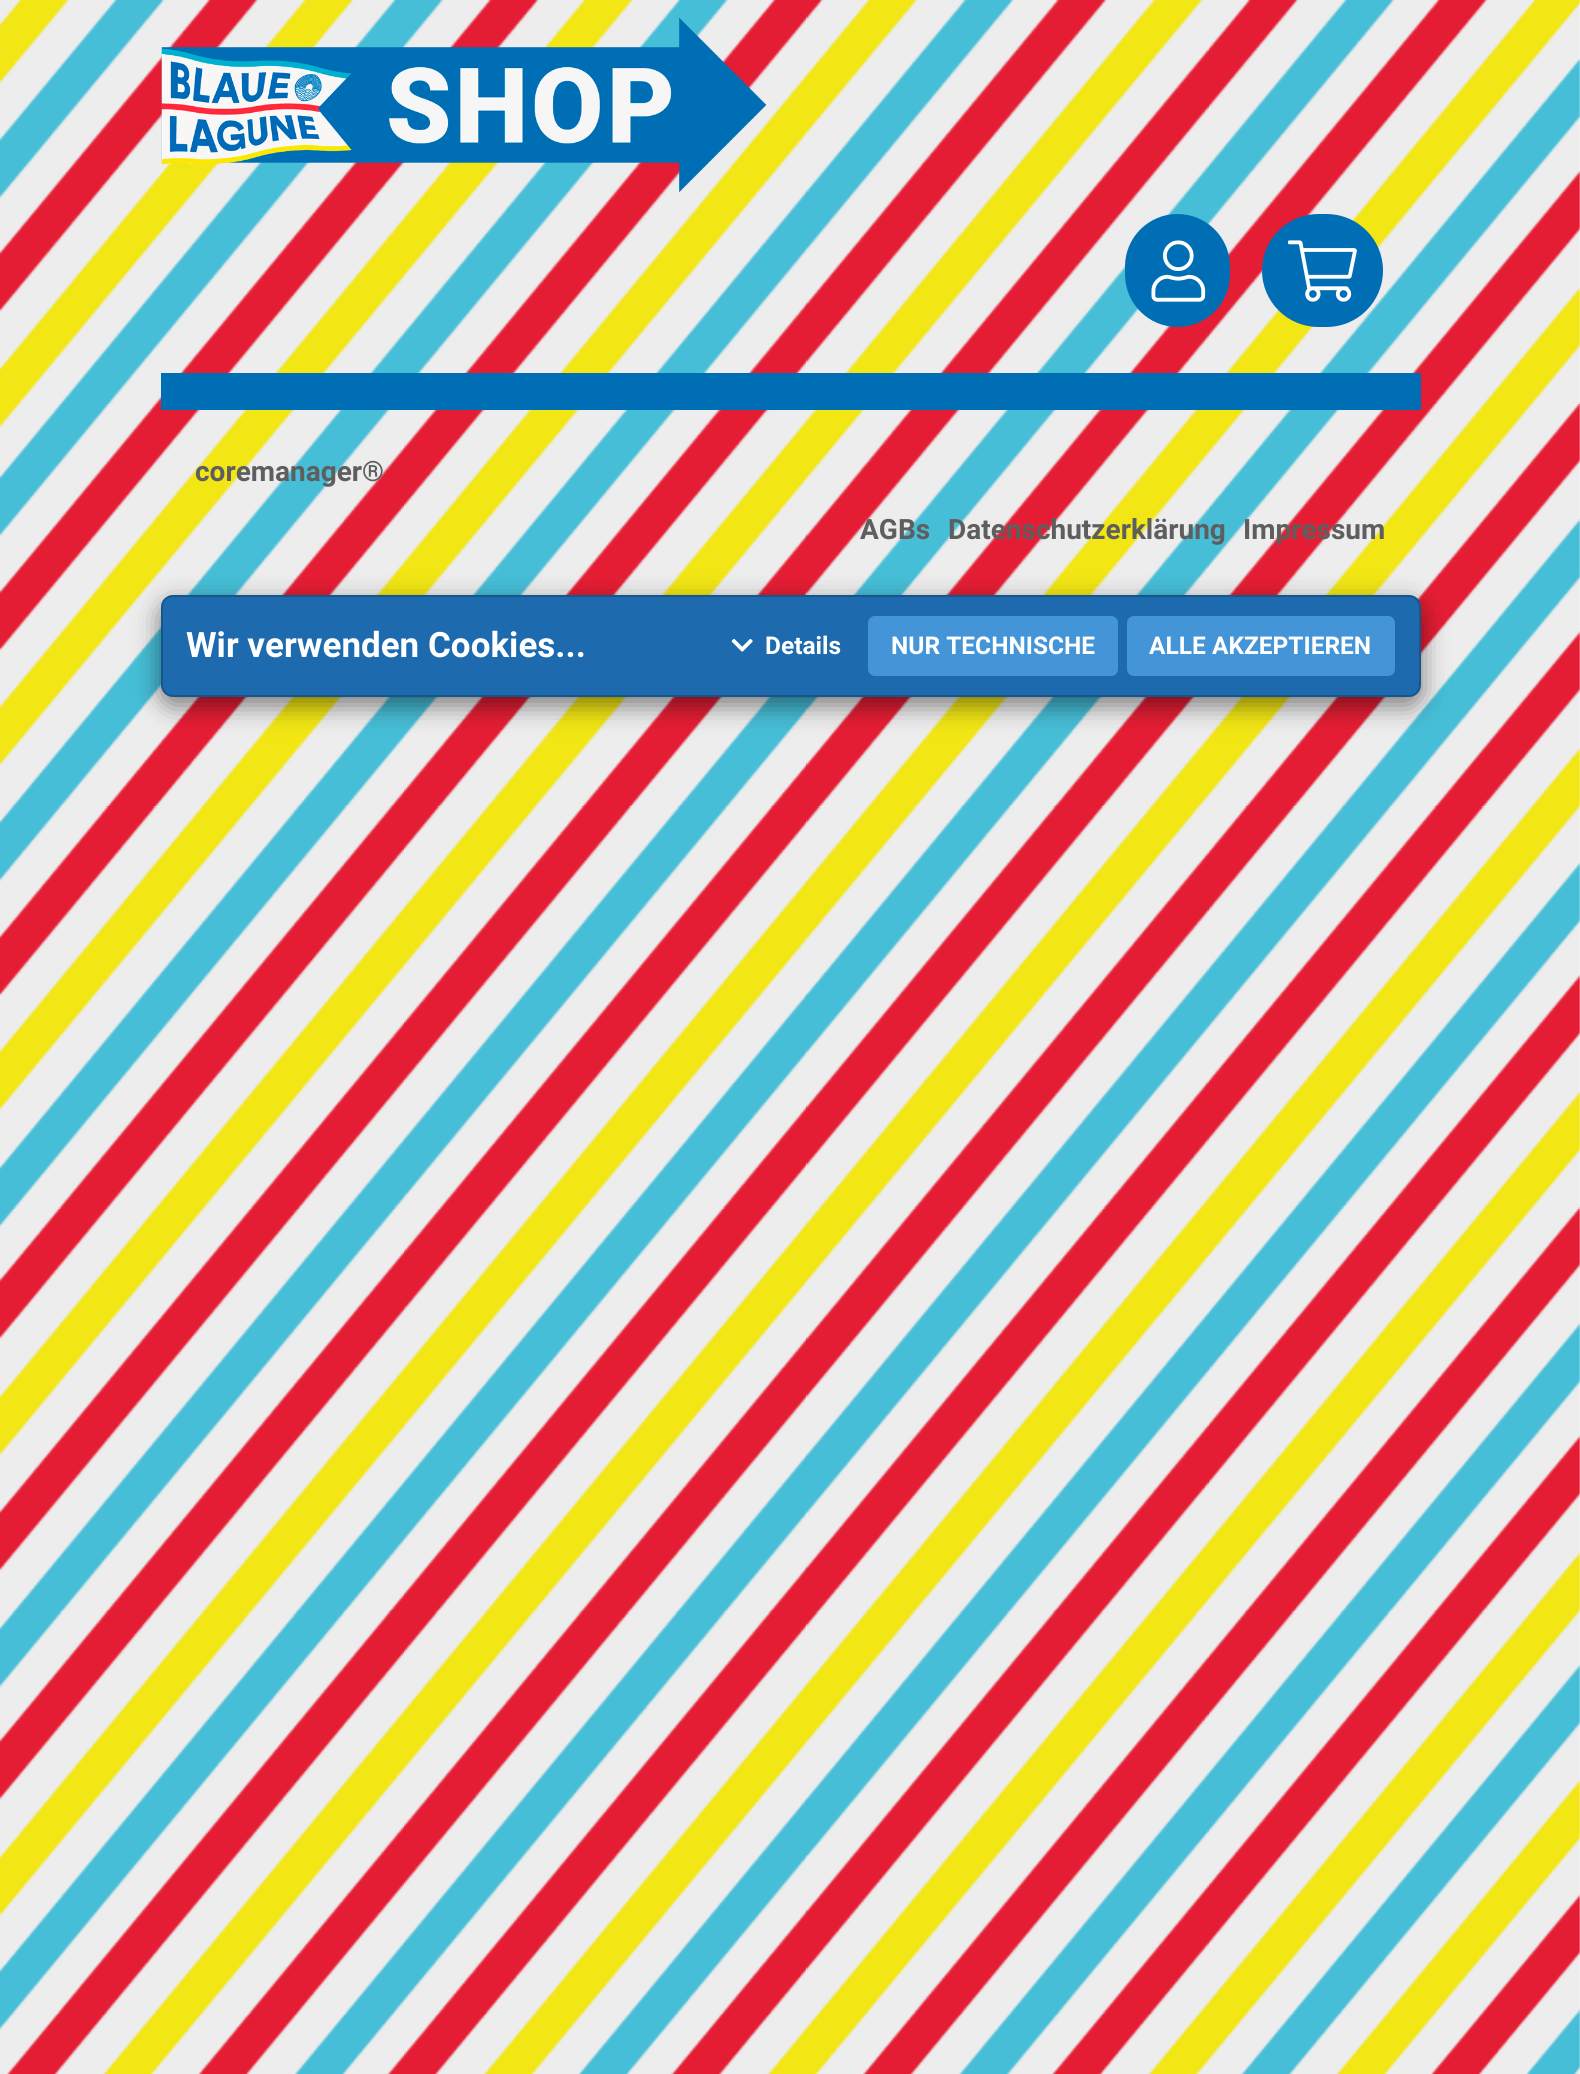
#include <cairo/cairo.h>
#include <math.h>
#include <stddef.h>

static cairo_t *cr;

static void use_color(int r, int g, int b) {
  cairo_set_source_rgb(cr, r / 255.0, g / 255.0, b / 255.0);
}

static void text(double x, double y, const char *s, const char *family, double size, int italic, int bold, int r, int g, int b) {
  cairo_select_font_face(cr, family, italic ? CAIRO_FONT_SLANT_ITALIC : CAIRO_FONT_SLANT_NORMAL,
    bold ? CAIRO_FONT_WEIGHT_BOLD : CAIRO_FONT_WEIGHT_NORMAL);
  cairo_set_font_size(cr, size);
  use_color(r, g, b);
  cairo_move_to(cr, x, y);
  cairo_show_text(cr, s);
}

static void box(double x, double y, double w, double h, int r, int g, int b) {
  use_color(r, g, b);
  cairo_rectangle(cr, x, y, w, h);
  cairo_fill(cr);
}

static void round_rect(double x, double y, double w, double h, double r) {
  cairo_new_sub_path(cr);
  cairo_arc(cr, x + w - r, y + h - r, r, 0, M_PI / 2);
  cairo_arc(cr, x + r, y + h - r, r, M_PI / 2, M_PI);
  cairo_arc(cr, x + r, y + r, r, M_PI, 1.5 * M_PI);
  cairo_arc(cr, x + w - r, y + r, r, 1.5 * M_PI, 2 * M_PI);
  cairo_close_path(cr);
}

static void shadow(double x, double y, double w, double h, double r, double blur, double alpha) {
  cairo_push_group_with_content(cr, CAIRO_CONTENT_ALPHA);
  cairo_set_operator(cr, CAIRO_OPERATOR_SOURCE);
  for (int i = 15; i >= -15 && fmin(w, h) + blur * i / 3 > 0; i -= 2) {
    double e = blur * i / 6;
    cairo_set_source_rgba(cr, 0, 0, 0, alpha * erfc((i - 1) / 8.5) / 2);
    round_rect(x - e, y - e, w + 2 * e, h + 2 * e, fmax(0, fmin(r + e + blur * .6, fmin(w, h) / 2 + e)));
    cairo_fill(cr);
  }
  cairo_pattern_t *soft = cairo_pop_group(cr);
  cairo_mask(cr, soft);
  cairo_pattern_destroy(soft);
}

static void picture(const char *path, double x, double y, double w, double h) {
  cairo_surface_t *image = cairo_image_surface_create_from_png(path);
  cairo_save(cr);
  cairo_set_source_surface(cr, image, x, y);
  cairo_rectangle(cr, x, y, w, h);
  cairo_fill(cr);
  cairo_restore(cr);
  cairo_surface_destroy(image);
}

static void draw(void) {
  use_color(255, 255, 255);
  cairo_paint(cr);
  picture("img_01.png", 0, 0, 1580, 2074);
  picture("img_02.png", 161, 17, 606, 176);
  use_color(0, 110, 181);
  round_rect(1125, 214, 105, 113, 52.5);
  cairo_fill(cr);
  picture("img_03.png", 1151, 240, 55, 62);
  round_rect(1262, 214, 121, 113, 56.5);
  cairo_fill(cr);
  picture("img_04.png", 1288, 240, 69, 62);
  box(161, 373, 1260, 37, 0, 110, 181);
  use_color(0, 0, 0);
  shadow(161, 604, 1260, 101, 12, 13, 0.5);
  use_color(29, 107, 174);
  round_rect(161, 595, 1260, 102, 12);
  cairo_fill(cr);
  round_rect(162, 596, 1258, 100, 11);
  cairo_set_source_rgba(cr, 0, 0, 0, 0.2);
  cairo_stroke(cr);
  picture("img_05.png", 731, 639, 22, 13);
  use_color(68, 149, 215);
  round_rect(868, 616, 250, 60, 7);
  cairo_fill(cr);
  round_rect(1127, 616, 268, 60, 7);
  cairo_fill(cr);
  text(195, 481, "coremanager®", "Roboto", 28, 0, 1, 94, 94, 94);
  text(860, 539, "AGBs", "Roboto", 28, 0, 1, 94, 94, 94);
  text(948, 539, "Datenschutzerklärung", "Roboto", 28, 0, 1, 94, 94, 94);
  text(1243, 539, "Impressum", "Roboto", 28, 0, 1, 94, 94, 94);
  text(186, 657, "Wir verwenden Cookies...", "Roboto", 35, 0, 1, 255, 255, 255);
  text(765, 654, "Details", "Roboto", 24.5, 0, 1, 255, 255, 255);
  text(891, 654, "NUR TECHNISCHE", "Roboto", 24.5, 0, 1, 255, 255, 255);
  text(1149, 654, "ALLE AKZEPTIEREN", "Roboto", 24.5, 0, 1, 255, 255, 255);
}

int main(void) {
  cairo_surface_t *surface = cairo_image_surface_create(CAIRO_FORMAT_RGB24, 1580, 2074);
  cr = cairo_create(surface);
  cairo_font_options_t *options = cairo_font_options_create();
  cairo_font_options_set_hint_metrics(options, CAIRO_HINT_METRICS_OFF);
  cairo_font_options_set_hint_style(options, CAIRO_HINT_STYLE_NONE);
  cairo_set_font_options(cr, options);
  cairo_set_miter_limit(cr, 4);
  draw();
  cairo_surface_write_to_png(surface, "out.png");
  cairo_font_options_destroy(options);
  cairo_destroy(cr);
  cairo_surface_destroy(surface);
  return 0;
}
